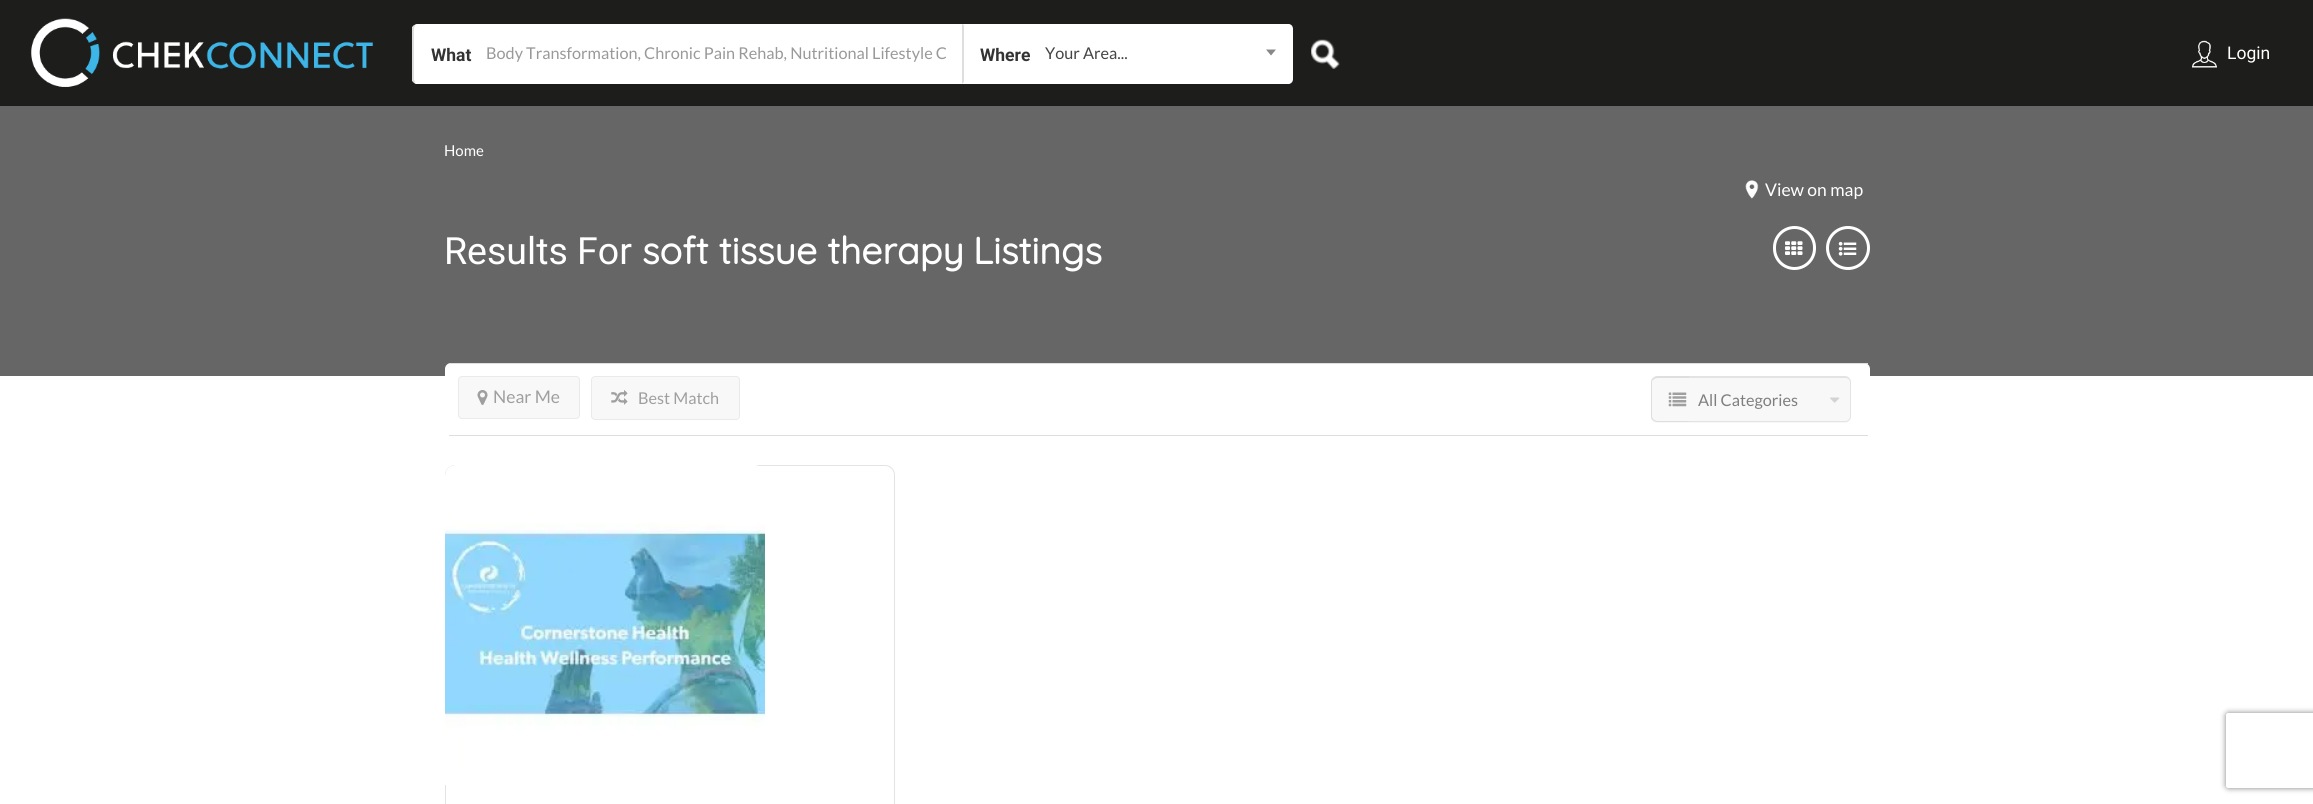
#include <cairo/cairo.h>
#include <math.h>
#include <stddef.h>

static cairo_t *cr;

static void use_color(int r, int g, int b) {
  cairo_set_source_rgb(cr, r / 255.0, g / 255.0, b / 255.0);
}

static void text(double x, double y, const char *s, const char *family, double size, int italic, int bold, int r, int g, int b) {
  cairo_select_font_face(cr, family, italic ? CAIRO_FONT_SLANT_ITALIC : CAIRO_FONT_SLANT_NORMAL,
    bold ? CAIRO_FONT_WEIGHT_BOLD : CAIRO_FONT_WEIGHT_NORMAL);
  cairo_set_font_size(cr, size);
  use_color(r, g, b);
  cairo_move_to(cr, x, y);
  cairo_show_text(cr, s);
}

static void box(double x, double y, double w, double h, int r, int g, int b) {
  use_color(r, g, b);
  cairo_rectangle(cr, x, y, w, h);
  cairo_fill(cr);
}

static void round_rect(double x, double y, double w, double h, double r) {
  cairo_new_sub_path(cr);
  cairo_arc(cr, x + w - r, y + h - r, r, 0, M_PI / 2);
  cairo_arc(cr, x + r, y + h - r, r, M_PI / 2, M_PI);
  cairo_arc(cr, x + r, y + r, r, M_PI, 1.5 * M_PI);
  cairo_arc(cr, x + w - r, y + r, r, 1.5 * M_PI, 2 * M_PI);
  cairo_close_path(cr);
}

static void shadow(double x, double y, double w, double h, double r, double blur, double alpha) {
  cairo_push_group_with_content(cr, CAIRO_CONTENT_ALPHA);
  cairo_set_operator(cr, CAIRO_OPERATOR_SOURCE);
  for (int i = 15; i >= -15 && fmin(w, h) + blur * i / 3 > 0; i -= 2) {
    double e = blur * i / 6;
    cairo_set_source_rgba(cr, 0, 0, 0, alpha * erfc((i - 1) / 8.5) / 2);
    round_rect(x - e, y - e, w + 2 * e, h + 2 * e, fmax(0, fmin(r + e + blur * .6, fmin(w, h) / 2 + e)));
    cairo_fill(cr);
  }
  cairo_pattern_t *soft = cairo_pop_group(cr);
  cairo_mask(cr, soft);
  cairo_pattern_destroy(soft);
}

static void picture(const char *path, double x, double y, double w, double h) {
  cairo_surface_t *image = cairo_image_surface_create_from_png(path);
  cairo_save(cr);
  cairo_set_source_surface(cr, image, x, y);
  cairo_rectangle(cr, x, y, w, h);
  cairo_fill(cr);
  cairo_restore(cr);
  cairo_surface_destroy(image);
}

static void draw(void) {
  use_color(255, 255, 255);
  cairo_paint(cr);
  box(0, 0, 2313, 106, 29, 29, 27);
  picture("img_01.png", 31, 18, 342, 69);
  use_color(255, 255, 255);
  cairo_new_path(cr);
  cairo_move_to(cr, 418, 24);
  cairo_line_to(cr, 963, 24);
  cairo_line_to(cr, 963, 84);
  cairo_line_to(cr, 418, 84);
  cairo_curve_to(cr, 415, 84, 413, 82, 413, 79);
  cairo_line_to(cr, 413, 29);
  cairo_curve_to(cr, 413, 26, 415, 24, 418, 24);
  cairo_close_path(cr);
  cairo_fill(cr);
  cairo_new_path(cr);
  cairo_move_to(cr, 418, 24);
  cairo_line_to(cr, 414, 25);
  cairo_line_to(cr, 415, 26);
  cairo_curve_to(cr, 416, 25, 417, 25, 418, 25);
  cairo_line_to(cr, 961, 25);
  cairo_line_to(cr, 962, 24);
  cairo_close_path(cr);
  cairo_fill(cr);
  cairo_new_path(cr);
  cairo_move_to(cr, 416, 84);
  cairo_line_to(cr, 414, 83);
  cairo_line_to(cr, 415, 81);
  cairo_line_to(cr, 418, 82);
  cairo_line_to(cr, 961, 82);
  cairo_line_to(cr, 962, 83);
  cairo_line_to(cr, 962, 84);
  cairo_close_path(cr);
  cairo_fill(cr);
  use_color(222, 222, 222);
  cairo_new_path(cr);
  cairo_move_to(cr, 412, 27);
  cairo_line_to(cr, 414, 25);
  cairo_line_to(cr, 415, 26);
  cairo_curve_to(cr, 414, 27, 414, 28, 414, 29);
  cairo_line_to(cr, 414, 79);
  cairo_curve_to(cr, 414, 80, 414, 81, 415, 81);
  cairo_line_to(cr, 414, 83);
  cairo_line_to(cr, 412, 81);
  cairo_close_path(cr);
  cairo_fill(cr);
  use_color(255, 255, 255);
  cairo_new_path(cr);
  cairo_move_to(cr, 963, 24);
  cairo_line_to(cr, 1288, 24);
  cairo_curve_to(cr, 1291, 24, 1293, 26, 1293, 29);
  cairo_line_to(cr, 1293, 79);
  cairo_curve_to(cr, 1293, 82, 1291, 84, 1288, 84);
  cairo_line_to(cr, 963, 84);
  cairo_close_path(cr);
  cairo_fill(cr);
  cairo_new_path(cr);
  cairo_move_to(cr, 964, 25);
  cairo_line_to(cr, 1289, 25);
  cairo_line_to(cr, 1290, 26);
  cairo_line_to(cr, 1291, 25);
  cairo_curve_to(cr, 1290, 25, 1289, 24, 1288, 24);
  cairo_line_to(cr, 963, 24);
  cairo_close_path(cr);
  cairo_fill(cr);
  cairo_new_path(cr);
  cairo_move_to(cr, 1291, 25);
  cairo_line_to(cr, 1292, 28);
  cairo_line_to(cr, 1292, 71);
  cairo_curve_to(cr, 1292, 73, 1293, 79, 1291, 82);
  cairo_line_to(cr, 1290, 81);
  cairo_line_to(cr, 1291, 79);
  cairo_line_to(cr, 1291, 37);
  cairo_curve_to(cr, 1291, 36, 1292, 29, 1290, 26);
  cairo_close_path(cr);
  cairo_fill(cr);
  cairo_new_path(cr);
  cairo_move_to(cr, 1291, 82);
  cairo_line_to(cr, 1289, 84);
  cairo_line_to(cr, 962, 84);
  cairo_line_to(cr, 964, 82);
  cairo_line_to(cr, 1288, 82);
  cairo_line_to(cr, 1290, 81);
  cairo_close_path(cr);
  cairo_fill(cr);
  use_color(222, 222, 222);
  cairo_new_path(cr);
  cairo_move_to(cr, 962, 84);
  cairo_line_to(cr, 964, 82);
  cairo_line_to(cr, 964, 25);
  cairo_line_to(cr, 962, 24);
  cairo_close_path(cr);
  cairo_fill(cr);
  use_color(136, 136, 136);
  cairo_new_path(cr);
  cairo_move_to(cr, 1266, 49.5);
  cairo_line_to(cr, 1276, 49.5);
  cairo_line_to(cr, 1271, 55.5);
  cairo_close_path(cr);
  cairo_fill(cr);
  picture("img_02.png", 1311, 39, 29, 30);
  picture("img_03.png", 2191, 40, 26, 28);
  box(0, 106, 2313, 270, 102, 102, 102);
  picture("img_04.png", 1745, 180, 14, 19);
  round_rect(1774.5, 227.5, 40, 41, 20);
  use_color(255, 255, 255);
  cairo_set_line_width(cr, 3);
  cairo_stroke(cr);
  picture("img_05.png", 1785, 241, 18, 14);
  cairo_arc(cr, 1848, 248, 20.5, 0, 2 * M_PI);
  cairo_stroke(cr);
  picture("img_06.png", 1838, 241, 19, 15);
  round_rect(445, 363, 1425, 73, 6);
  cairo_fill(cr);
  box(449, 363, 1419, 1, 222, 222, 222);
  box(449, 435, 1419, 1, 222, 222, 222);
  use_color(248, 248, 248);
  round_rect(458.5, 376.5, 121, 42, 3.5);
  cairo_fill_preserve(cr);
  use_color(234, 234, 234);
  cairo_set_line_width(cr, 1);
  cairo_stroke(cr);
  picture("img_07.png", 477, 390, 11, 15);
  use_color(248, 248, 248);
  round_rect(591.5, 376.5, 148, 43, 3.5);
  cairo_fill_preserve(cr);
  use_color(234, 234, 234);
  cairo_stroke(cr);
  picture("img_08.png", 611, 390, 17, 15);
  use_color(248, 248, 248);
  cairo_new_path(cr);
  cairo_move_to(cr, 1657, 376);
  cairo_line_to(cr, 1689, 376);
  cairo_line_to(cr, 1689, 423);
  cairo_line_to(cr, 1657, 423);
  cairo_curve_to(cr, 1653.5, 423, 1651, 420.5, 1651, 417);
  cairo_line_to(cr, 1651, 382);
  cairo_curve_to(cr, 1651, 378.5, 1653.5, 376, 1657, 376);
  cairo_close_path(cr);
  cairo_fill(cr);
  use_color(222, 222, 222);
  cairo_set_fill_rule(cr, CAIRO_FILL_RULE_EVEN_ODD);
  cairo_new_path(cr);
  cairo_move_to(cr, 1658, 376);
  cairo_line_to(cr, 1689, 376);
  cairo_line_to(cr, 1689, 422);
  cairo_line_to(cr, 1658, 422);
  cairo_curve_to(cr, 1654, 422, 1651, 420, 1651, 416);
  cairo_line_to(cr, 1651, 382);
  cairo_curve_to(cr, 1651, 379, 1654, 376, 1658, 376);
  cairo_close_path(cr);
  cairo_move_to(cr, 1658, 378);
  cairo_line_to(cr, 1689, 378);
  cairo_line_to(cr, 1689, 421);
  cairo_line_to(cr, 1658, 421);
  cairo_curve_to(cr, 1655, 421, 1652, 419, 1652, 416);
  cairo_line_to(cr, 1652, 382);
  cairo_curve_to(cr, 1652, 380, 1655, 378, 1658, 378);
  cairo_close_path(cr);
  cairo_fill(cr);
  picture("img_09.png", 1668, 392, 19, 15);
  use_color(248, 248, 248);
  cairo_new_path(cr);
  cairo_move_to(cr, 1689, 376);
  cairo_line_to(cr, 1845, 376);
  cairo_curve_to(cr, 1848.5, 376, 1851, 378.5, 1851, 382);
  cairo_line_to(cr, 1851, 417);
  cairo_curve_to(cr, 1851, 420.5, 1848.5, 423, 1845, 423);
  cairo_line_to(cr, 1689, 423);
  cairo_close_path(cr);
  cairo_fill(cr);
  use_color(227, 227, 227);
  cairo_new_path(cr);
  cairo_move_to(cr, 1689, 376);
  cairo_line_to(cr, 1845, 376);
  cairo_curve_to(cr, 1848, 376, 1851, 379, 1851, 382);
  cairo_line_to(cr, 1851, 416);
  cairo_curve_to(cr, 1851, 420, 1848, 422, 1845, 422);
  cairo_line_to(cr, 1689, 422);
  cairo_close_path(cr);
  cairo_move_to(cr, 1689, 378);
  cairo_line_to(cr, 1845, 378);
  cairo_curve_to(cr, 1848, 378, 1850, 380, 1850, 382);
  cairo_line_to(cr, 1850, 416);
  cairo_curve_to(cr, 1850, 419, 1848, 421, 1845, 421);
  cairo_line_to(cr, 1689, 421);
  cairo_close_path(cr);
  cairo_fill(cr);
  picture("img_10.png", 1830, 397, 10, 6);
  round_rect(445.5, 465.5, 449, 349, 9.5);
  cairo_stroke(cr);
  picture("img_11.png", 445, 465, 320, 320);
  cairo_save(cr);
  cairo_new_path(cr);
  cairo_move_to(cr, 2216, 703);
  cairo_line_to(cr, 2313, 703);
  cairo_line_to(cr, 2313, 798);
  cairo_line_to(cr, 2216, 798);
  cairo_close_path(cr);
  cairo_move_to(cr, 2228.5, 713);
  cairo_line_to(cr, 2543.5, 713);
  cairo_curve_to(cr, 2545, 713, 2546, 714, 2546, 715.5);
  cairo_line_to(cr, 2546, 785.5);
  cairo_curve_to(cr, 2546, 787, 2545, 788, 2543.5, 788);
  cairo_line_to(cr, 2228.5, 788);
  cairo_curve_to(cr, 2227, 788, 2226, 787, 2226, 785.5);
  cairo_line_to(cr, 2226, 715.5);
  cairo_curve_to(cr, 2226, 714, 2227, 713, 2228.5, 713);
  cairo_close_path(cr);
  cairo_clip(cr);
  use_color(128, 128, 128);
  shadow(2226, 713, 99, 75, 2.5, 3, 1);
  cairo_restore(cr);
  text(431, 61, "What", "Roboto", 17.5, 0, 1, 51, 51, 51);
  cairo_save(cr);
  cairo_set_fill_rule(cr, CAIRO_FILL_RULE_WINDING);
  cairo_rectangle(cr, 486, 44, 460, 20);
  cairo_clip(cr);
  text(486, 59, "Body Transformation, Chronic Pain Rehab, Nutritional Lifestyle C", "Lato", 16.25, 0, 0, 153, 153, 153);
  cairo_restore(cr);
  text(980, 61, "Where", "Roboto", 17.5, 0, 1, 51, 51, 51);
  text(1045, 59, "Your Area...", "Lato", 16.25, 0, 0, 68, 68, 68);
  text(2227, 59, "Login", "Roboto", 17.5, 0, 0, 255, 255, 255);
  text(444, 156, "Home", "Lato", 15, 0, 0, 255, 255, 255);
  text(1765, 196, "View on map", "Lato", 17.5, 0, 0, 255, 255, 255);
  text(444, 264, "Results For", "Roboto", 37.5, 0, 0, 255, 255, 255);
  text(642, 264, "soft tissue therapy", "Quicksand", 37.5, 0, 1, 255, 255, 255);
  text(973, 264, "Listings", "Quicksand", 37.5, 0, 1, 255, 255, 255);
  text(493, 403, "Near Me", "Lato", 17.5, 0, 0, 159, 159, 159);
  text(638, 404, "Best Match", "Lato", 16.25, 0, 0, 159, 159, 159);
  text(1698, 406, "All Categories", "Lato", 16.25, 0, 0, 127, 127, 127);
}

int main(void) {
  cairo_surface_t *surface = cairo_image_surface_create(CAIRO_FORMAT_RGB24, 2313, 804);
  cr = cairo_create(surface);
  cairo_font_options_t *options = cairo_font_options_create();
  cairo_font_options_set_hint_metrics(options, CAIRO_HINT_METRICS_OFF);
  cairo_font_options_set_hint_style(options, CAIRO_HINT_STYLE_NONE);
  cairo_set_font_options(cr, options);
  cairo_set_miter_limit(cr, 4);
  draw();
  cairo_surface_write_to_png(surface, "out.png");
  cairo_font_options_destroy(options);
  cairo_destroy(cr);
  cairo_surface_destroy(surface);
  return 0;
}
